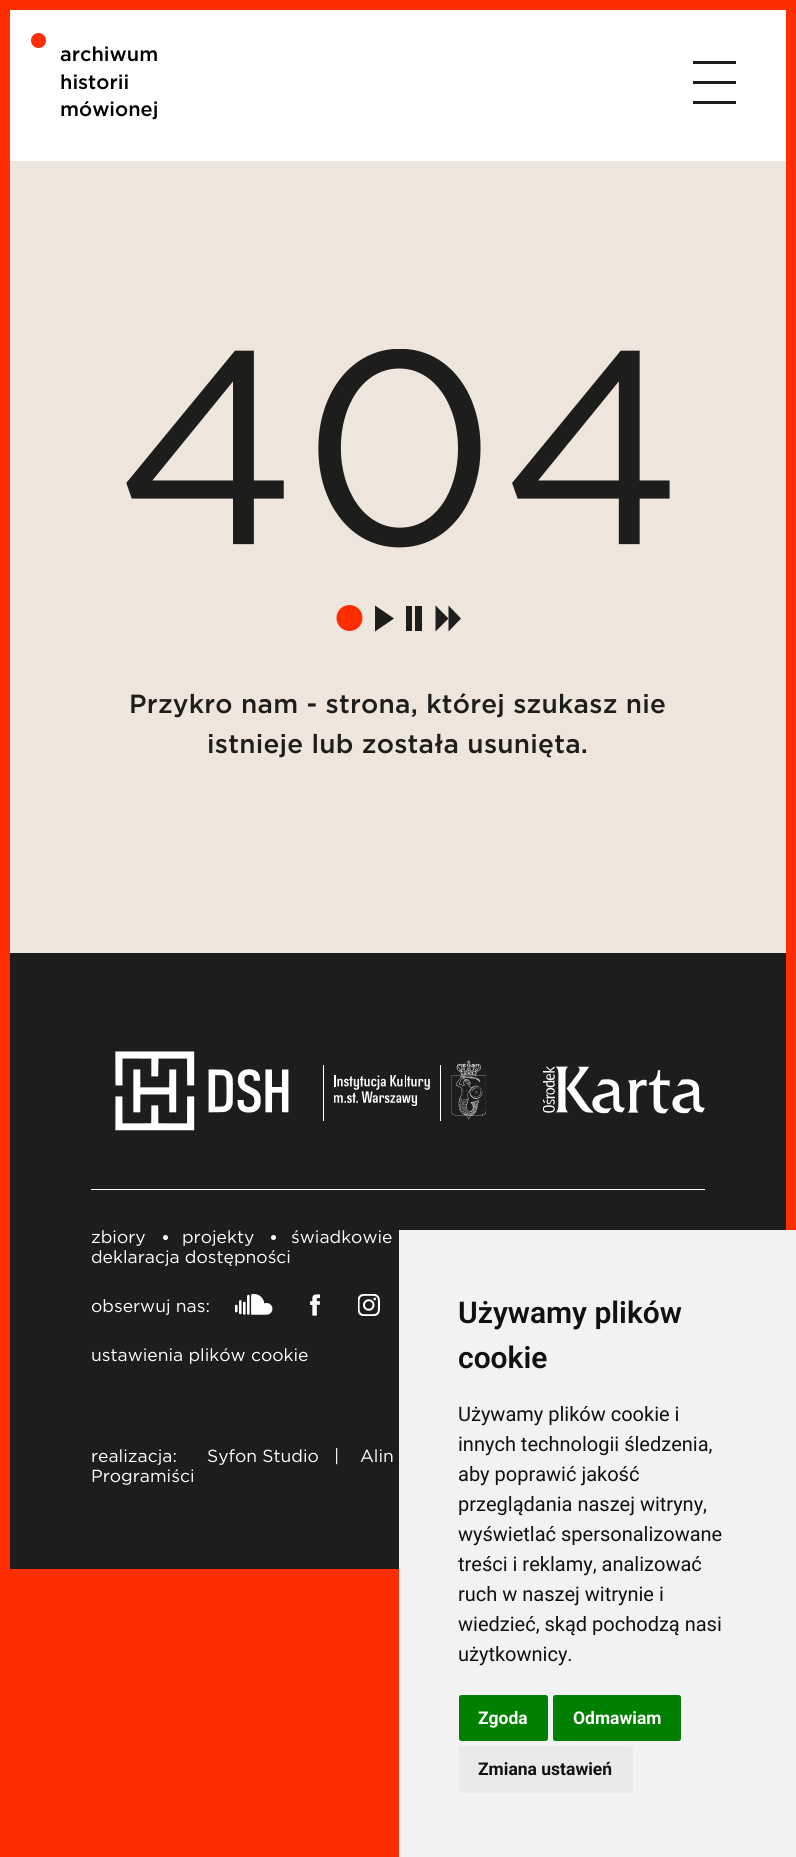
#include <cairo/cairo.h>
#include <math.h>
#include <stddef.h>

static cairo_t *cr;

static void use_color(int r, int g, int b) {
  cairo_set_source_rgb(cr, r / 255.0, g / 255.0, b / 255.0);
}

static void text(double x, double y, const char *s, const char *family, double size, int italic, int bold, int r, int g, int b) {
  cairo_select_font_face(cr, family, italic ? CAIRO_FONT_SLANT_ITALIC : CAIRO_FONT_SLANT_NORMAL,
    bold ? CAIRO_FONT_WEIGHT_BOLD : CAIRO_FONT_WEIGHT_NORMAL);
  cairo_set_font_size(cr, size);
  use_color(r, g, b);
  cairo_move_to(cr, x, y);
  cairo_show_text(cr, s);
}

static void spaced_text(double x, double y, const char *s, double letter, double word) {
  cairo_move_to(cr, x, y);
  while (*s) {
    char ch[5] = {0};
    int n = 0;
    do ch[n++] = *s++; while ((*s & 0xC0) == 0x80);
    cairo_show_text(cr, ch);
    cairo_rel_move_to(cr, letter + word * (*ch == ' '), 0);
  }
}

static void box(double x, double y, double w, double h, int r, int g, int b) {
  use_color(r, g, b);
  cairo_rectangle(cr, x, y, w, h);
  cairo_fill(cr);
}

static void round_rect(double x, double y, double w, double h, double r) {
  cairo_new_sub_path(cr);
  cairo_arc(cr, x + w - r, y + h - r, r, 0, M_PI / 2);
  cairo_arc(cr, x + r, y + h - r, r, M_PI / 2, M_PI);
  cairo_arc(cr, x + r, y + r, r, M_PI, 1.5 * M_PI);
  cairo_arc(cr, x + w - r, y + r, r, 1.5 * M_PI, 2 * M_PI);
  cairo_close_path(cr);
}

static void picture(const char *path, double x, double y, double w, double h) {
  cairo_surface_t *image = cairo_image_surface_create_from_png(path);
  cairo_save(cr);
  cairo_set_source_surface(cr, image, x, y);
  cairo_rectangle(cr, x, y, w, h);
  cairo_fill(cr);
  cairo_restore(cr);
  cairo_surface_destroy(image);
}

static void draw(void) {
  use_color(254, 46, 0);
  cairo_paint(cr);
  box(10, 161, 776, 792, 238, 229, 221);
  box(10, 10, 776, 151, 255, 255, 255);
  use_color(254, 46, 0);
  cairo_arc(cr, 38.5, 40.5, 7.5, 0, 2 * M_PI);
  cairo_fill(cr);
  box(693, 61, 43, 3, 29, 29, 27);
  box(693, 81, 43, 3, 29, 29, 27);
  box(693, 101, 43, 3, 29, 29, 27);
  picture("img_01.png", 126, 349, 544, 199);
  cairo_new_path(cr);
  cairo_move_to(cr, 375, 607);
  cairo_line_to(cr, 375, 605.5);
  cairo_line_to(cr, 394, 618.5);
  cairo_line_to(cr, 375, 631.5);
  cairo_line_to(cr, 375, 607);
  cairo_fill(cr);
  use_color(254, 46, 0);
  cairo_arc(cr, 349.5, 618, 13, 0, 2 * M_PI);
  cairo_fill(cr);
  use_color(29, 29, 27);
  cairo_new_path(cr);
  cairo_move_to(cr, 435.5, 607);
  cairo_line_to(cr, 435.5, 605.5);
  cairo_line_to(cr, 448.5, 618.5);
  cairo_line_to(cr, 435.5, 631.5);
  cairo_line_to(cr, 435.5, 607);
  cairo_fill(cr);
  cairo_new_path(cr);
  cairo_move_to(cr, 448.5, 607);
  cairo_line_to(cr, 448.5, 605.5);
  cairo_line_to(cr, 461, 618.5);
  cairo_line_to(cr, 448.5, 631.5);
  cairo_line_to(cr, 448.5, 607);
  cairo_fill(cr);
  box(406, 606, 6, 25, 29, 29, 27);
  box(415, 606, 7, 25, 29, 29, 27);
  box(10, 953, 776, 616, 29, 29, 27);
  picture("img_02.png", 115, 1051, 174, 80);
  box(323, 1065, 1, 56, 255, 255, 255);
  picture("img_03.png", 334, 1075, 96, 31);
  box(440, 1065, 1, 56, 255, 255, 255);
  picture("img_04.png", 451, 1060, 35, 60);
  picture("img_05.png", 543, 1066, 162, 48);
  box(91, 1189, 614, 1, 255, 255, 255);
  cairo_arc(cr, 165.5, 1237.5, 2.5, 0, 2 * M_PI);
  cairo_fill(cr);
  cairo_arc(cr, 273.5, 1237.5, 2.5, 0, 2 * M_PI);
  cairo_fill(cr);
  picture("img_06.png", 235, 1294, 38, 21);
  picture("img_07.png", 310, 1294, 10, 22);
  picture("img_08.png", 358, 1294, 22, 22);
  box(399, 1230, 397, 627, 242, 242, 242);
  use_color(0, 128, 0);
  round_rect(459, 1695, 89, 46, 2.5);
  cairo_fill(cr);
  round_rect(553, 1695, 128, 46, 2.5);
  cairo_fill(cr);
  use_color(234, 234, 234);
  round_rect(459, 1746, 174, 47, 2.5);
  cairo_fill(cr);
  text(60, 61, "archiwum", "Gotham Medium", 20, 0, 0, 0, 0, 0);
  text(60, 89, "historii", "Gotham Medium", 20, 0, 0, 0, 0, 0);
  text(60, 116, "mówionej", "Gotham Medium", 20, 0, 0, 0, 0, 0);
  cairo_set_font_size(cr, 26.25);
  use_color(29, 29, 27);
  spaced_text(129, 713, "Przykro nam - strona, której szukasz nie", 0.25, 0);
  spaced_text(207, 753, "istnieje lub została usunięta.", 0.25, 0);
  text(91, 1243, "zbiory", "Gotham", 17.5, 0, 0, 255, 255, 255);
  text(182, 1243, "projekty", "Gotham", 17.5, 0, 0, 255, 255, 255);
  text(291, 1243, "świadkowie", "Gotham", 17.5, 0, 0, 255, 255, 255);
  text(91, 1263, "deklaracja dostępności", "Gotham", 17.5, 0, 0, 255, 255, 255);
  text(91, 1312, "obserwuj nas:", "Gotham", 17.5, 0, 0, 255, 255, 255);
  text(91, 1361, "ustawienia plików cookie", "Gotham", 17.5, 0, 0, 255, 255, 255);
  text(91, 1462, "realizacja:", "Gotham", 17.5, 0, 0, 255, 255, 255);
  text(207, 1462, "Syfon Studio", "Gotham", 17.5, 0, 0, 255, 255, 255);
  text(334, 1462, "|", "Gotham", 17.5, 0, 0, 255, 255, 255);
  text(360, 1462, "Alin", "Gotham", 17.5, 0, 0, 255, 255, 255);
  text(91, 1482, "Programiści", "Gotham", 17.5, 0, 0, 255, 255, 255);
  text(458, 1323, "Używamy plików", "Roboto SemiBold", 30, 0, 0, 17, 17, 17);
  text(458, 1368, "cookie", "Roboto SemiBold", 30, 0, 0, 17, 17, 17);
  text(458, 1421, "Używamy plików cookie i", "Roboto", 20, 0, 0, 17, 17, 17);
  text(458, 1451, "innych technologii śledzenia,", "Roboto", 20, 0, 0, 17, 17, 17);
  text(458, 1481, "aby poprawić jakość", "Roboto", 20, 0, 0, 17, 17, 17);
  text(458, 1511, "przeglądania naszej witryny,", "Roboto", 20, 0, 0, 17, 17, 17);
  text(458, 1541, "wyświetlać spersonalizowane", "Roboto", 20, 0, 0, 17, 17, 17);
  text(458, 1571, "treści i reklamy, analizować", "Roboto", 20, 0, 0, 17, 17, 17);
  text(458, 1601, "ruch w naszej witrynie i", "Roboto", 20, 0, 0, 17, 17, 17);
  text(458, 1631, "wiedzieć, skąd pochodzą nasi", "Roboto", 20, 0, 0, 17, 17, 17);
  text(458, 1661, "użytkownicy.", "Roboto", 20, 0, 0, 17, 17, 17);
  text(478, 1724, "Zgoda", "Roboto", 17.5, 0, 1, 255, 255, 255);
  text(573, 1724, "Odmawiam", "Roboto", 17.5, 0, 1, 255, 255, 255);
  text(478, 1775, "Zmiana ustawień", "Roboto", 17.5, 0, 1, 17, 17, 17);
}

int main(void) {
  cairo_surface_t *surface = cairo_image_surface_create(CAIRO_FORMAT_RGB24, 796, 1857);
  cr = cairo_create(surface);
  cairo_font_options_t *options = cairo_font_options_create();
  cairo_font_options_set_hint_metrics(options, CAIRO_HINT_METRICS_OFF);
  cairo_font_options_set_hint_style(options, CAIRO_HINT_STYLE_NONE);
  cairo_set_font_options(cr, options);
  cairo_set_miter_limit(cr, 4);
  draw();
  cairo_surface_write_to_png(surface, "out.png");
  cairo_font_options_destroy(options);
  cairo_destroy(cr);
  cairo_surface_destroy(surface);
  return 0;
}
